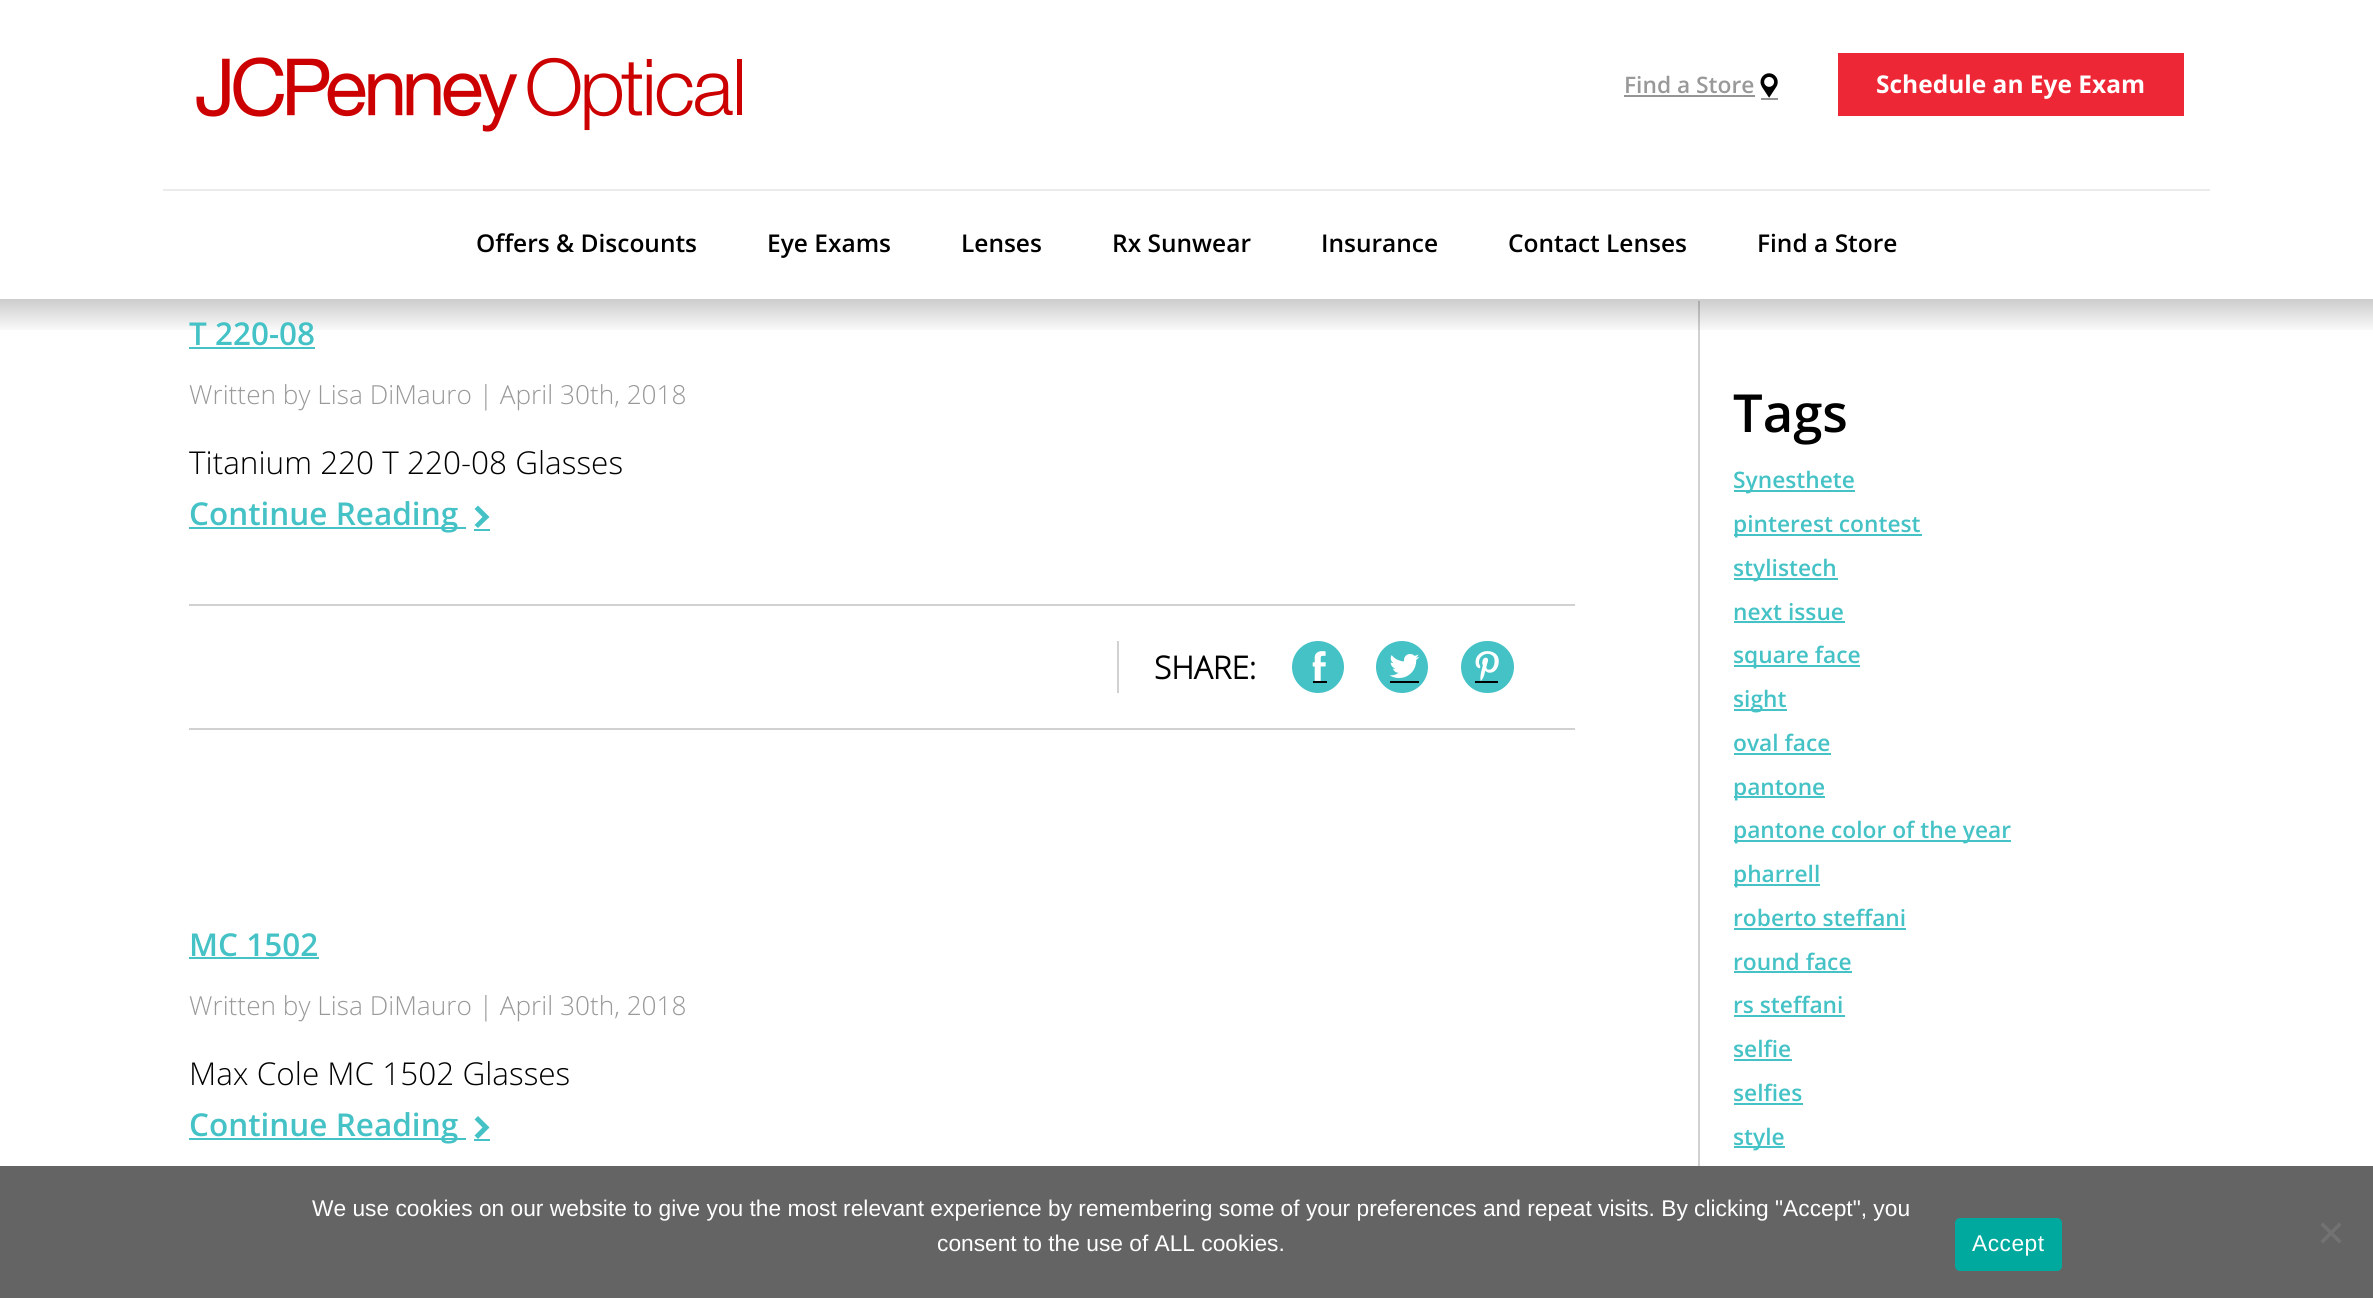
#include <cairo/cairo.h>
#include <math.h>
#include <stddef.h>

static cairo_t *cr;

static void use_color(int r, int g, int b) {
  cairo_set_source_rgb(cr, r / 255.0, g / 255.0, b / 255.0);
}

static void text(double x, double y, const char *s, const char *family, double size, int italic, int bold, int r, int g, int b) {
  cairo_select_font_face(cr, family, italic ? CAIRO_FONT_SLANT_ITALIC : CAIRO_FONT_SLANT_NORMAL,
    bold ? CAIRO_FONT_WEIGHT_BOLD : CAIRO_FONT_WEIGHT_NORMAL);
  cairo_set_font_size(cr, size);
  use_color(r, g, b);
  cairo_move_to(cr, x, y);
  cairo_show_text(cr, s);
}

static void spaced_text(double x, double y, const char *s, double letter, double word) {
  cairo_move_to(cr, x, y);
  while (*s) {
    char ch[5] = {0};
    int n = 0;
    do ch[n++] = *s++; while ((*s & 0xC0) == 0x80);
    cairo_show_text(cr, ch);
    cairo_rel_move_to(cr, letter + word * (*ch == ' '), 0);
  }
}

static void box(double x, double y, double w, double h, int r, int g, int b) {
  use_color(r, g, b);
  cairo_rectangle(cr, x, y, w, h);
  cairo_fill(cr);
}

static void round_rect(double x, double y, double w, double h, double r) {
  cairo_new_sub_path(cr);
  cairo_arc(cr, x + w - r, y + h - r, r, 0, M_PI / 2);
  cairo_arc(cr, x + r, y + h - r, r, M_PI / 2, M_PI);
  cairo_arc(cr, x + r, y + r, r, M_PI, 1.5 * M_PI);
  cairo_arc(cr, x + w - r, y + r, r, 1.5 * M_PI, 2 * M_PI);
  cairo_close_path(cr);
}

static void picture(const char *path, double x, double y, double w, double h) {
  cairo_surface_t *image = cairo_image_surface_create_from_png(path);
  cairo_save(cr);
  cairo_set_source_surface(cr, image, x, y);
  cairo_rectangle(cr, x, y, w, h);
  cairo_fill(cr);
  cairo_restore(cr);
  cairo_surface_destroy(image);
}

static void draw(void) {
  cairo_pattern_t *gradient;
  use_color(255, 255, 255);
  cairo_paint(cr);
  box(1698, 294, 2, 872, 209, 209, 209);
  box(1698, 294, 2, 7, 255, 255, 255);
  picture("img_01.png", 196, 57, 546, 75);
  box(1624, 95, 131, 2, 149, 149, 149);
  box(1761, 98, 17, 2, 149, 149, 149);
  picture("img_02.png", 1760, 73, 18, 25);
  box(1838, 53, 346, 63, 238, 39, 55);
  box(163, 189, 2047, 2, 235, 235, 235);
  gradient = cairo_pattern_create_linear(1187, 299, 1187, 334);
  cairo_pattern_add_color_stop_rgba(gradient, 0, 0, 0, 0, 0.2);
  cairo_pattern_add_color_stop_rgba(gradient, 1, 0, 0, 0, 0);
  cairo_set_source(cr, gradient);
  cairo_pattern_destroy(gradient);
  cairo_rectangle(cr, 0, 299, 2373, 31);
  cairo_fill(cr);
  box(189, 347, 126, 2, 69, 194, 198);
  box(189, 527, 277, 2, 69, 194, 198);
  cairo_new_path(cr);
  cairo_move_to(cr, 478, 505.5);
  cairo_line_to(cr, 474.5, 509);
  cairo_line_to(cr, 482.5, 517);
  cairo_line_to(cr, 474.5, 525);
  cairo_line_to(cr, 478, 528);
  cairo_line_to(cr, 489.5, 517);
  cairo_close_path(cr);
  cairo_fill(cr);
  box(474, 529, 16, 2, 69, 194, 198);
  box(189, 604, 1386, 2, 209, 209, 209);
  box(189, 728, 1386, 2, 209, 209, 209);
  box(1117, 641, 2, 52, 209, 209, 209);
  use_color(69, 194, 198);
  cairo_arc(cr, 1318, 667, 26, 0, 2 * M_PI);
  cairo_fill(cr);
  picture("img_03.png", 1312, 651, 14, 30);
  box(1313, 681, 14, 2, 0, 0, 0);
  use_color(69, 194, 198);
  cairo_arc(cr, 1402, 667, 26, 0, 2 * M_PI);
  cairo_fill(cr);
  picture("img_04.png", 1389, 654, 31, 24);
  box(1390, 681, 29, 2, 0, 0, 0);
  use_color(69, 194, 198);
  round_rect(1461, 641, 53, 52, 26);
  cairo_fill(cr);
  picture("img_05.png", 1475, 651, 24, 30);
  box(1475, 681, 23, 2, 0, 0, 0);
  box(189, 957, 130, 2, 69, 194, 198);
  box(189, 1138, 277, 2, 69, 194, 198);
  cairo_new_path(cr);
  cairo_move_to(cr, 478, 1116);
  cairo_line_to(cr, 474.5, 1119.5);
  cairo_line_to(cr, 482.5, 1127.5);
  cairo_line_to(cr, 474.5, 1135.5);
  cairo_line_to(cr, 478, 1139);
  cairo_line_to(cr, 489.5, 1127.5);
  cairo_close_path(cr);
  cairo_fill(cr);
  box(474, 1139, 16, 2, 69, 194, 198);
  box(1734, 490, 121, 2, 69, 194, 198);
  box(1734, 534, 188, 2, 69, 194, 198);
  box(1734, 578, 104, 2, 69, 194, 198);
  box(1734, 621, 111, 2, 69, 194, 198);
  box(1734, 665, 126, 2, 69, 194, 198);
  box(1734, 709, 53, 2, 69, 194, 198);
  box(1734, 753, 97, 2, 69, 194, 198);
  box(1734, 796, 91, 2, 69, 194, 198);
  box(1734, 840, 277, 2, 69, 194, 198);
  box(1734, 884, 86, 2, 69, 194, 198);
  box(1734, 928, 172, 2, 69, 194, 198);
  box(1734, 971, 118, 2, 69, 194, 198);
  box(1734, 1015, 111, 2, 69, 194, 198);
  box(1734, 1059, 58, 2, 69, 194, 198);
  box(1734, 1103, 69, 2, 69, 194, 198);
  box(1734, 1146, 51, 2, 69, 194, 198);
  box(0, 1166, 2373, 132, 100, 100, 100);
  use_color(0, 169, 157);
  round_rect(1955, 1218, 107, 53, 5);
  cairo_fill(cr);
  use_color(114, 114, 114);
  cairo_new_path(cr);
  cairo_move_to(cr, 2339, 1222.5);
  cairo_line_to(cr, 2341.5, 1225);
  cairo_line_to(cr, 2323, 1243.5);
  cairo_line_to(cr, 2320.5, 1241);
  cairo_close_path(cr);
  cairo_fill(cr);
  cairo_new_path(cr);
  cairo_move_to(cr, 2320.5, 1225);
  cairo_line_to(cr, 2323, 1222.5);
  cairo_line_to(cr, 2341.5, 1241);
  cairo_line_to(cr, 2339, 1243.5);
  cairo_close_path(cr);
  cairo_fill(cr);
  text(1624, 93, "Find a Store", "Open Sans SemiBold", 22.75, 0, 0, 153, 153, 153);
  text(1876, 93, "Schedule an Eye Exam", "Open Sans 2", 24.5, 0, 1, 255, 255, 255);
  text(476, 252, "Offers & Discounts", "Open Sans SemiBold", 24.5, 0, 0, 0, 0, 0);
  text(767, 252, "Eye Exams", "Open Sans SemiBold", 24.5, 0, 0, 0, 0, 0);
  text(961, 252, "Lenses", "Open Sans SemiBold", 24.5, 0, 0, 0, 0, 0);
  text(1112, 252, "Rx Sunwear", "Open Sans SemiBold", 24.5, 0, 0, 0, 0, 0);
  text(1321, 252, "Insurance", "Open Sans SemiBold", 24.5, 0, 0, 0, 0, 0);
  text(1508, 252, "Contact Lenses", "Open Sans SemiBold", 24.5, 0, 0, 0, 0, 0);
  text(1757, 252, "Find a Store", "Open Sans SemiBold", 24.5, 0, 0, 0, 0, 0);
  text(189, 345, "T 220-08", "Open Sans SemiBold", 31.5, 0, 0, 69, 194, 198);
  text(189, 404, "Written by Lisa DiMauro | April 30th, 2018", "Open Sans Light", 26.25, 0, 0, 153, 153, 153);
  text(189, 474, "Titanium 220 T 220-08 Glasses", "Open Sans Light", 31.5, 0, 0, 0, 0, 0);
  text(189, 525, "Continue Reading", "Open Sans SemiBold", 31.5, 0, 0, 69, 194, 198);
  text(1154, 679, "SHARE:", "Open Sans", 31.5, 0, 1, 0, 0, 0);
  text(189, 956, "MC 1502", "Open Sans SemiBold", 31.5, 0, 0, 69, 194, 198);
  text(189, 1015, "Written by Lisa DiMauro | April 30th, 2018", "Open Sans Light", 26.25, 0, 0, 153, 153, 153);
  text(189, 1085, "Max Cole MC 1502 Glasses", "Open Sans Light", 31.5, 0, 0, 0, 0, 0);
  text(189, 1136, "Continue Reading", "Open Sans SemiBold", 31.5, 0, 0, 69, 194, 198);
  text(1733, 432, "Tags", "Open Sans SemiBold", 52.5, 0, 0, 0, 0, 0);
  text(1733, 488, "Synesthete", "Open Sans SemiBold", 22.75, 0, 0, 69, 194, 198);
  text(1733, 532, "pinterest contest", "Open Sans SemiBold", 22.75, 0, 0, 69, 194, 198);
  text(1733, 576, "stylistech", "Open Sans SemiBold", 22.75, 0, 0, 69, 194, 198);
  text(1733, 620, "next issue", "Open Sans SemiBold", 22.75, 0, 0, 69, 194, 198);
  text(1733, 663, "square face", "Open Sans SemiBold", 22.75, 0, 0, 69, 194, 198);
  text(1733, 707, "sight", "Open Sans SemiBold", 22.75, 0, 0, 69, 194, 198);
  text(1733, 751, "oval face", "Open Sans SemiBold", 22.75, 0, 0, 69, 194, 198);
  text(1733, 795, "pantone", "Open Sans SemiBold", 22.75, 0, 0, 69, 194, 198);
  text(1733, 838, "pantone color of the year", "Open Sans SemiBold", 22.75, 0, 0, 69, 194, 198);
  text(1733, 882, "pharrell", "Open Sans SemiBold", 22.75, 0, 0, 69, 194, 198);
  text(1733, 926, "roberto steffani", "Open Sans SemiBold", 22.75, 0, 0, 69, 194, 198);
  text(1733, 970, "round face", "Open Sans SemiBold", 22.75, 0, 0, 69, 194, 198);
  text(1733, 1013, "rs steffani", "Open Sans SemiBold", 22.75, 0, 0, 69, 194, 198);
  text(1733, 1057, "selfie", "Open Sans SemiBold", 22.75, 0, 0, 69, 194, 198);
  text(1733, 1101, "selfies", "Open Sans SemiBold", 22.75, 0, 0, 69, 194, 198);
  text(1733, 1145, "style", "Open Sans SemiBold", 22.75, 0, 0, 69, 194, 198);
  text(312, 1216, "We use cookies on our website to give you the most relevant experience by remembering some of your preferences and repeat visits. By clicking \"Accept\", you", "Liberation Sans", 22.75, 0, 0, 255, 255, 255);
  text(937, 1251, "consent to the use of ALL cookies.", "Liberation Sans", 22.75, 0, 0, 255, 255, 255);
  spaced_text(1972, 1251, "Accept", 0.5, 0);
}

int main(void) {
  cairo_surface_t *surface = cairo_image_surface_create(CAIRO_FORMAT_RGB24, 2373, 1298);
  cr = cairo_create(surface);
  cairo_font_options_t *options = cairo_font_options_create();
  cairo_font_options_set_hint_metrics(options, CAIRO_HINT_METRICS_OFF);
  cairo_font_options_set_hint_style(options, CAIRO_HINT_STYLE_NONE);
  cairo_set_font_options(cr, options);
  cairo_set_miter_limit(cr, 4);
  draw();
  cairo_surface_write_to_png(surface, "out.png");
  cairo_font_options_destroy(options);
  cairo_destroy(cr);
  cairo_surface_destroy(surface);
  return 0;
}
